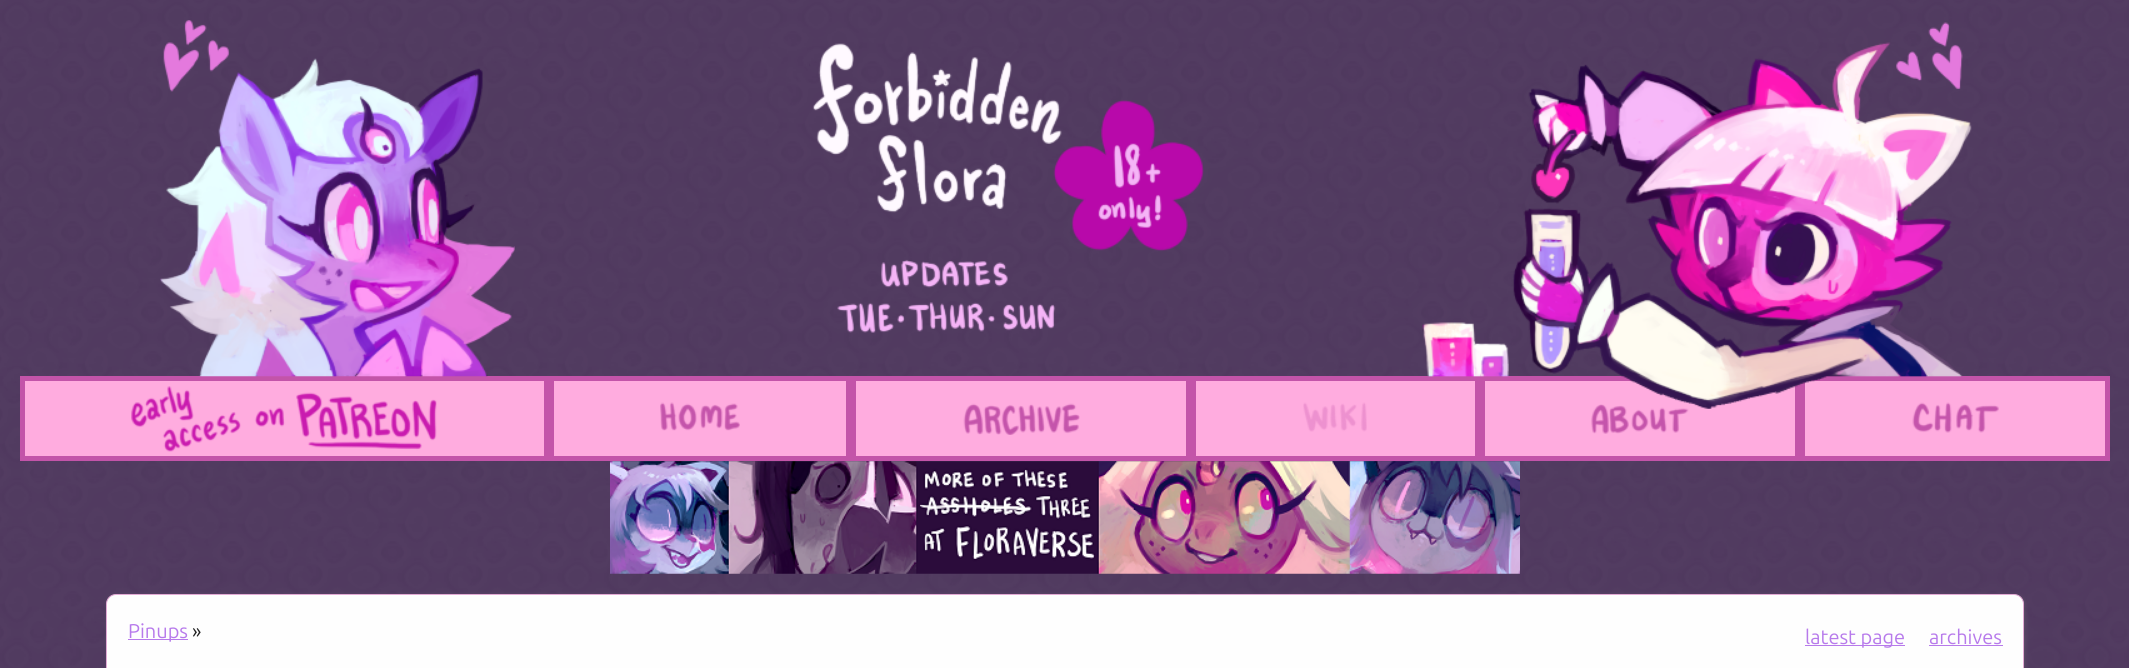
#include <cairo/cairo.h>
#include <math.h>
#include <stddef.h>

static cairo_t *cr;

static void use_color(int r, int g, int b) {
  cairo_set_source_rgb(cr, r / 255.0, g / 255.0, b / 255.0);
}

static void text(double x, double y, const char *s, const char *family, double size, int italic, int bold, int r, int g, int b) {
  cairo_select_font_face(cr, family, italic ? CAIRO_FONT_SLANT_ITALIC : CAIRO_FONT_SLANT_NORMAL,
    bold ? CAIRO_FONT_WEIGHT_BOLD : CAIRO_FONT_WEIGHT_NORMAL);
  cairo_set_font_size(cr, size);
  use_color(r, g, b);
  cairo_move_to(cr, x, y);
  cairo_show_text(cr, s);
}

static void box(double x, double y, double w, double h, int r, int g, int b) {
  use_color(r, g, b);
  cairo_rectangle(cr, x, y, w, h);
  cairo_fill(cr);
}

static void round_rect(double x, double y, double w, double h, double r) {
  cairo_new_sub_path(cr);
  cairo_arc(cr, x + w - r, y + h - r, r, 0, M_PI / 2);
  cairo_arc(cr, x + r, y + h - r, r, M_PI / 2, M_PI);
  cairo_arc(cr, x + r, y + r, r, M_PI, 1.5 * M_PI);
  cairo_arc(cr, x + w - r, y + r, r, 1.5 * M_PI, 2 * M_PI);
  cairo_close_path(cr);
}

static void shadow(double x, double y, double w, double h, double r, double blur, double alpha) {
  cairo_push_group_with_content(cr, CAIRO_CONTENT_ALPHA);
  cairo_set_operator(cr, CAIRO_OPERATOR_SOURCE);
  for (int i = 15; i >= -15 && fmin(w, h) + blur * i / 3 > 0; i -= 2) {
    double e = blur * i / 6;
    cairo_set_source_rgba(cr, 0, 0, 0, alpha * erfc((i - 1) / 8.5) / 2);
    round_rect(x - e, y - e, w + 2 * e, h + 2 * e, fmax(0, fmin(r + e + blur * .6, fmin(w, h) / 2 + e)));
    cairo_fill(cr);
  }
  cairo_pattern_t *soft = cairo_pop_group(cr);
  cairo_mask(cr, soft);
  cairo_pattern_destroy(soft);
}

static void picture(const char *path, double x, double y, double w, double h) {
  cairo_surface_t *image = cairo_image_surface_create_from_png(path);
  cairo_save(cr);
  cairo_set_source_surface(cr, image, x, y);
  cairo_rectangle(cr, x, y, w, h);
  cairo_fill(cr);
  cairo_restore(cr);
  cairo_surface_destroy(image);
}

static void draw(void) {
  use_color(78, 55, 93);
  cairo_paint(cr);
  picture("img_01.png", 0, 0, 2129, 668);
  box(20, 376, 2090, 85, 195, 84, 169);
  picture("img_02.png", 160, 20, 355, 357);
  picture("img_03.png", 809, 43, 395, 290);
  box(1196, 381, 279, 75, 255, 172, 223);
  box(1485, 381, 310, 75, 255, 172, 223);
  picture("img_09.png", 1591, 404, 98, 30);
  box(1805, 381, 300, 75, 255, 172, 223);
  picture("img_10.png", 1912, 402, 87, 31);
  picture("img_04.png", 1422, 22, 550, 387);
  box(25, 381, 519, 75, 255, 172, 223);
  picture("img_05.png", 131, 386, 306, 66);
  box(554, 381, 292, 75, 255, 172, 223);
  picture("img_06.png", 660, 402, 80, 29);
  box(856, 381, 330, 75, 255, 172, 223);
  picture("img_07.png", 963, 403, 117, 32);
  picture("img_08.png", 1303, 402, 64, 30);
  picture("img_11.png", 610, 461, 910, 113);
  use_color(128, 128, 128);
  shadow(108, 595, 1917, 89, 10, 2, 0.3);
  use_color(254, 254, 254);
  round_rect(106.5, 594.5, 1917, 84, 9.5);
  cairo_fill_preserve(cr);
  use_color(225, 170, 212);
  cairo_set_line_width(cr, 1);
  cairo_stroke(cr);
  box(128, 639, 60, 1, 183, 122, 235);
  box(1805, 645, 100, 1, 183, 122, 235);
  box(1929, 645, 74, 1, 183, 122, 235);
  text(128, 638, "Pinups", "Ubuntu", 20, 0, 0, 183, 122, 235);
  text(192, 638, "»", "Ubuntu", 20, 0, 0, 32, 32, 32);
  text(1805, 644, "latest page", "Ubuntu", 20, 0, 0, 183, 122, 235);
  text(1929, 644, "archives", "Ubuntu", 20, 0, 0, 183, 122, 235);
}

int main(void) {
  cairo_surface_t *surface = cairo_image_surface_create(CAIRO_FORMAT_RGB24, 2129, 668);
  cr = cairo_create(surface);
  cairo_font_options_t *options = cairo_font_options_create();
  cairo_font_options_set_hint_metrics(options, CAIRO_HINT_METRICS_OFF);
  cairo_font_options_set_hint_style(options, CAIRO_HINT_STYLE_NONE);
  cairo_set_font_options(cr, options);
  cairo_set_miter_limit(cr, 4);
  draw();
  cairo_surface_write_to_png(surface, "out.png");
  cairo_font_options_destroy(options);
  cairo_destroy(cr);
  cairo_surface_destroy(surface);
  return 0;
}
